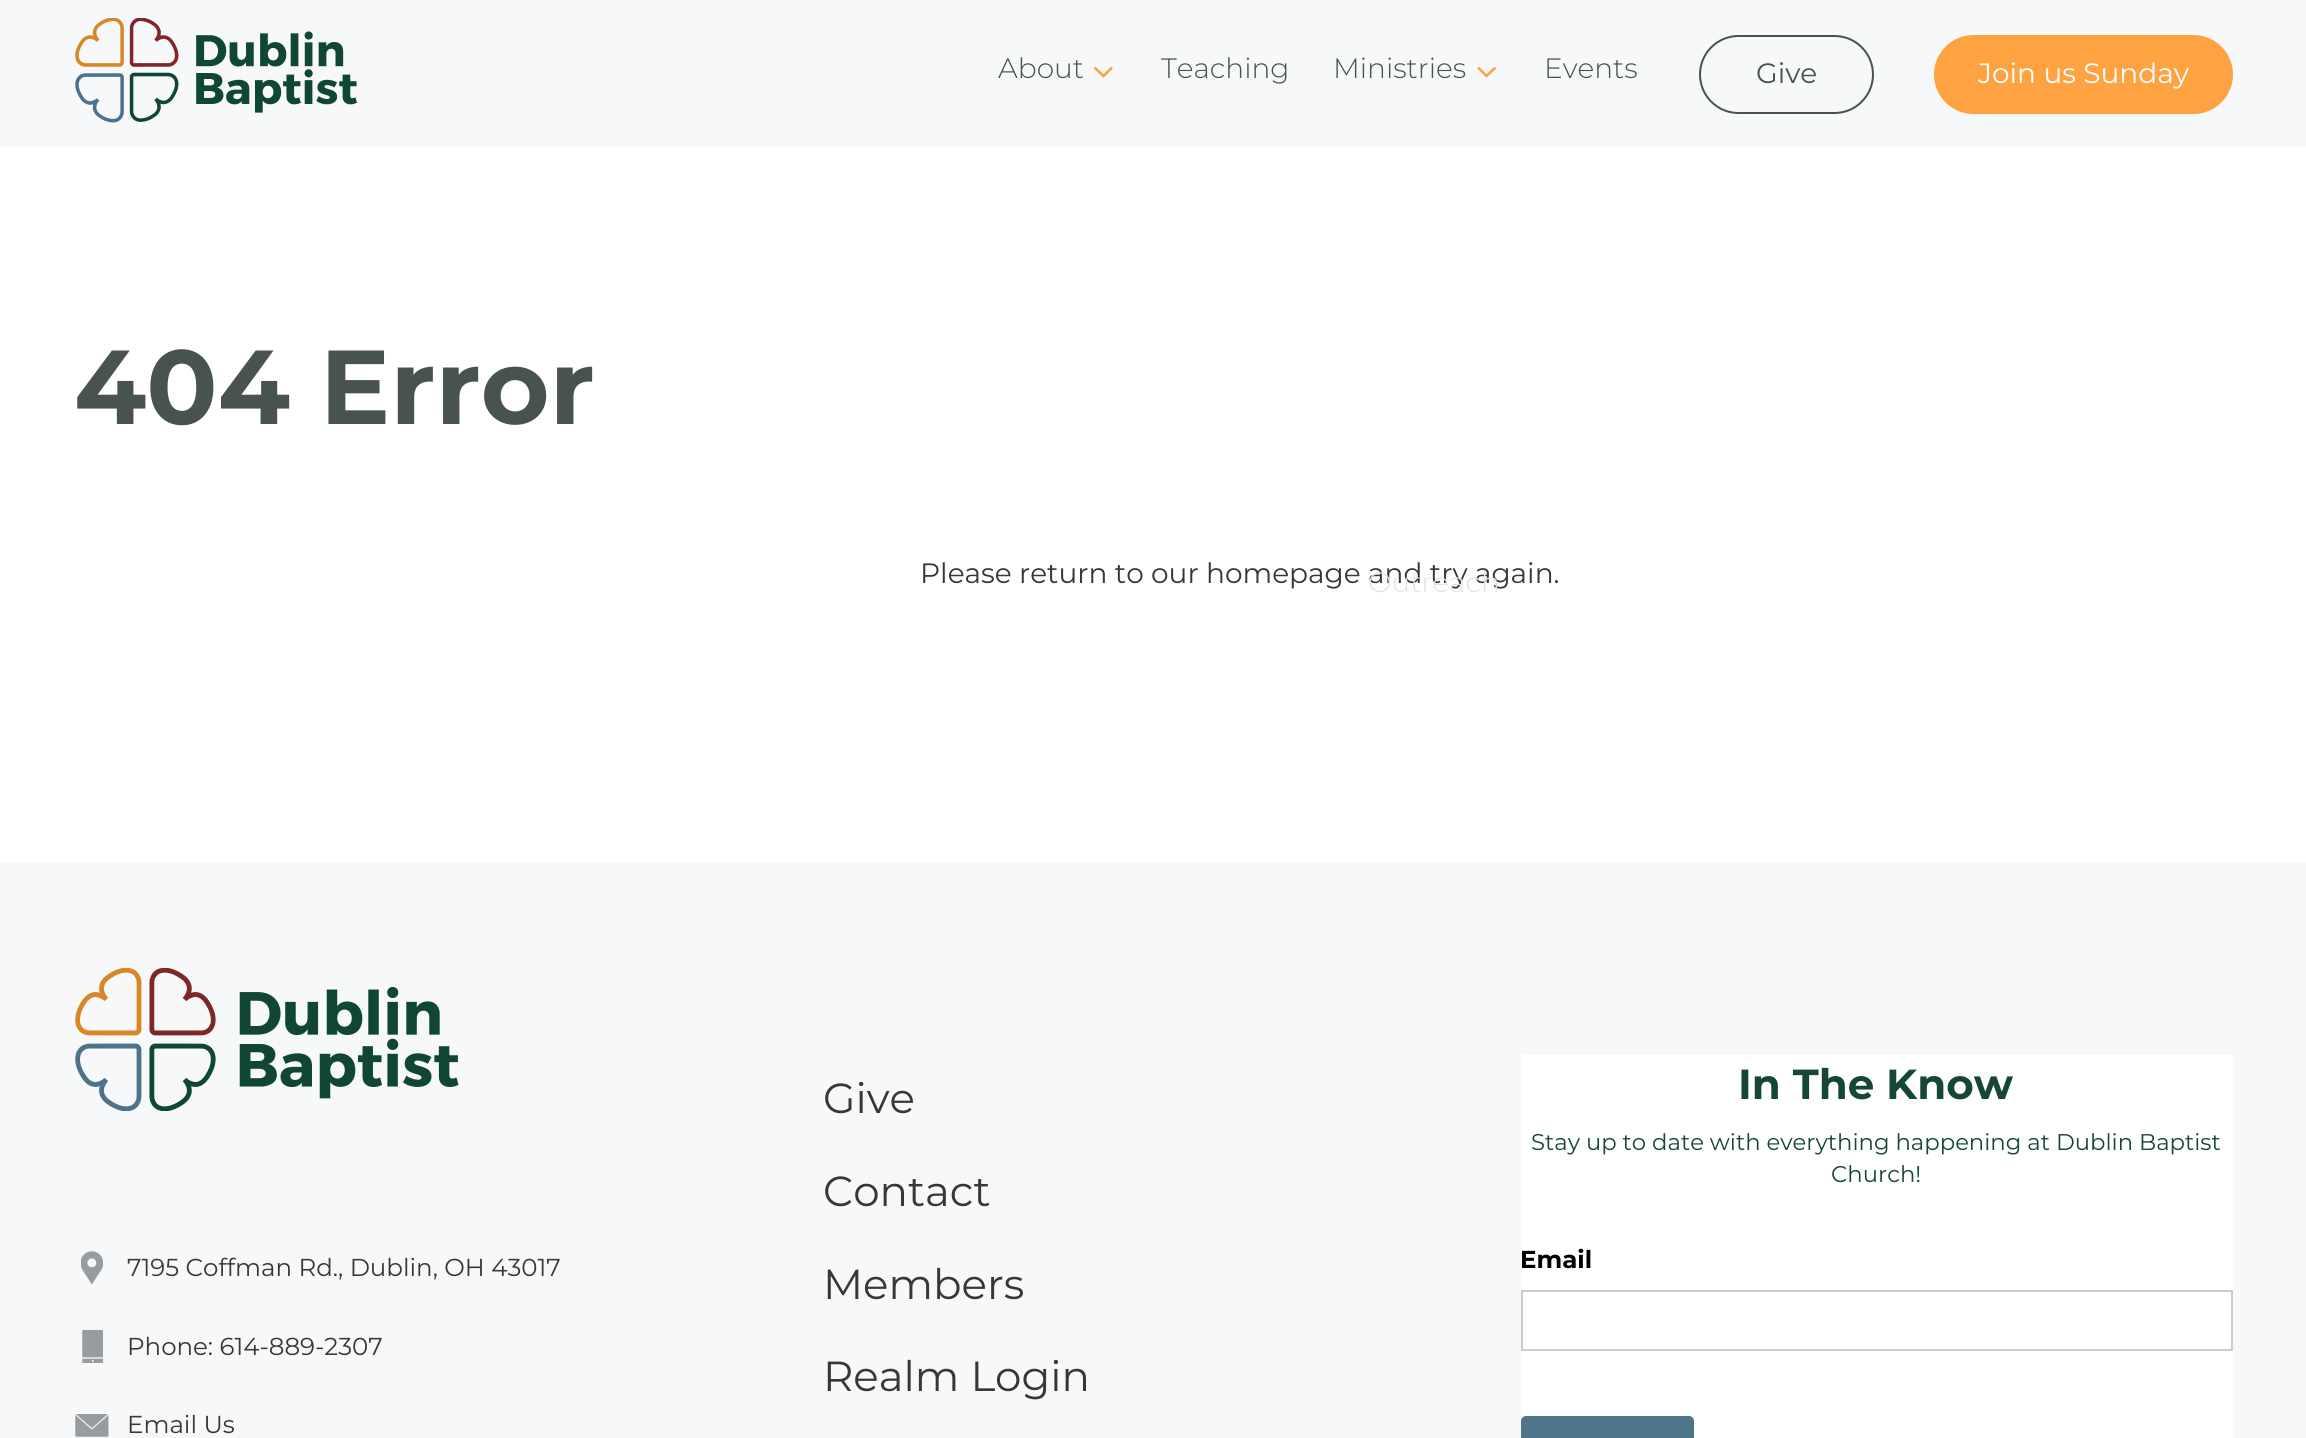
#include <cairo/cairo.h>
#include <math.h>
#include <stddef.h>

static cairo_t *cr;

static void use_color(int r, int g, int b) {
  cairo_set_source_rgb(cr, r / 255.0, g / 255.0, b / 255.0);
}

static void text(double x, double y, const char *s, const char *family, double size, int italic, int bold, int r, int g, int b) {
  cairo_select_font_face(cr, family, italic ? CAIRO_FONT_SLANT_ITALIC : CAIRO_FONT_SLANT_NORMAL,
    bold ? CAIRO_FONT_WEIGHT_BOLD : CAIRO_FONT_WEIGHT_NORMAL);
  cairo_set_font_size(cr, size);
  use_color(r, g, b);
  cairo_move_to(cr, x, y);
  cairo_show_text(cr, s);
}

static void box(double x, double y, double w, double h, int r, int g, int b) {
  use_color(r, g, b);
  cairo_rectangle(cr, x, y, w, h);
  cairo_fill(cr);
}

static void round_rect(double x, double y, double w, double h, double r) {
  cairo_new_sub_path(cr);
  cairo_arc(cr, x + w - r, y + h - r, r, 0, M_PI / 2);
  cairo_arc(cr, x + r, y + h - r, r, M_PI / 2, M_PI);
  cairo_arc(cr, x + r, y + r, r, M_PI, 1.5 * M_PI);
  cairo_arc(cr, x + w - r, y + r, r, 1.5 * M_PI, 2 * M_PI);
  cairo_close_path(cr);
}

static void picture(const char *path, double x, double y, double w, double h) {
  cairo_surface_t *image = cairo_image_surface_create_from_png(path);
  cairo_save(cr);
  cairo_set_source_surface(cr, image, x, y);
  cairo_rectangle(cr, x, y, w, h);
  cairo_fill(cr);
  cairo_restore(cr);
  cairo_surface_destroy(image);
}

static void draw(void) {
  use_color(255, 255, 255);
  cairo_paint(cr);
  box(0, 0, 2306, 147, 247, 248, 249);
  picture("img_01.png", 75, 18, 282, 105);
  cairo_save(cr);
  cairo_rectangle(cr, 1094, 67, 21, 12);
  cairo_clip(cr);
  cairo_new_path(cr);
  cairo_move_to(cr, 1094.5, 67.5);
  cairo_line_to(cr, 1103.5, 76);
  cairo_line_to(cr, 1112, 67.5);
  use_color(255, 163, 66);
  cairo_set_line_width(cr, 2.6);
  cairo_stroke(cr);
  cairo_restore(cr);
  cairo_save(cr);
  cairo_rectangle(cr, 1477, 67, 19, 12);
  cairo_clip(cr);
  cairo_new_path(cr);
  cairo_move_to(cr, 1478, 67.5);
  cairo_line_to(cr, 1486.5, 76);
  cairo_line_to(cr, 1495.5, 67.5);
  use_color(255, 163, 66);
  cairo_set_line_width(cr, 2.6);
  cairo_stroke(cr);
  cairo_restore(cr);
  round_rect(1700, 36, 173, 77, 38.5);
  use_color(72, 82, 79);
  cairo_stroke(cr);
  use_color(255, 163, 66);
  round_rect(1935, 36, 297, 77, 38.5);
  cairo_fill_preserve(cr);
  cairo_stroke(cr);
  box(0, 863, 2306, 575, 247, 248, 249);
  picture("img_02.png", 75, 968, 384, 143);
  picture("img_03.png", 81, 1251, 22, 34);
  picture("img_04.png", 82, 1330, 21, 33);
  picture("img_05.png", 75, 1414, 34, 23);
  box(1521, 1055, 712, 383, 255, 255, 255);
  cairo_rectangle(cr, 1522, 1291, 710, 59);
  use_color(204, 204, 204);
  cairo_stroke(cr);
  use_color(79, 117, 139);
  round_rect(1522, 1417, 171, 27, 4);
  cairo_fill_preserve(cr);
  cairo_stroke(cr);
  text(74, 424, "404 Error", "Montserrat", 105, 0, 1, 72, 82, 79);
  text(920, 583, "Please return to our homepage and try again.", "Montserrat", 28, 0, 0, 55, 55, 55);
  text(998, 78, "About", "Montserrat Light", 28, 0, 0, 72, 82, 79);
  text(1161, 78, "Teaching", "Montserrat Light", 28, 0, 0, 72, 82, 79);
  text(1333, 78, "Ministries", "Montserrat Light", 28, 0, 0, 72, 82, 79);
  text(1368, 592, "Outreach", "Montserrat Light", 28, 0, 0, 227, 227, 227);
  text(1544, 78, "Events", "Montserrat Light", 28, 0, 0, 72, 82, 79);
  text(1756, 83, "Give", "Montserrat", 28, 0, 0, 72, 82, 79);
  text(1978, 83, "Join us Sunday", "Montserrat", 28, 0, 0, 255, 255, 255);
  text(127, 1276, "7195 Coffman Rd., Dublin, OH 43017", "Montserrat", 24.5, 0, 0, 55, 55, 55);
  text(127, 1355, "Phone: 614-889-2307", "Montserrat", 24.5, 0, 0, 55, 55, 55);
  text(127, 1433, "Email Us", "Montserrat", 24.5, 0, 0, 55, 55, 55);
  text(823, 1113, "Give", "Montserrat", 42, 0, 0, 55, 55, 55);
  text(823, 1206, "Contact", "Montserrat", 42, 0, 0, 55, 55, 55);
  text(823, 1299, "Members", "Montserrat", 42, 0, 0, 55, 55, 55);
  text(823, 1391, "Realm Login", "Montserrat", 42, 0, 0, 55, 55, 55);
  text(1738, 1099, "In The Know", "Montserrat", 42, 0, 1, 21, 71, 52);
  text(1531, 1150, "Stay up to date with everything happening at Dublin Baptist", "Montserrat", 22.75, 0, 0, 21, 71, 52);
  text(1831, 1182, "Church!", "Montserrat", 22.75, 0, 0, 21, 71, 52);
  text(1520, 1268, "Email", "Montserrat", 24.5, 0, 1, 0, 0, 0);
}

int main(void) {
  cairo_surface_t *surface = cairo_image_surface_create(CAIRO_FORMAT_RGB24, 2306, 1438);
  cr = cairo_create(surface);
  cairo_font_options_t *options = cairo_font_options_create();
  cairo_font_options_set_hint_metrics(options, CAIRO_HINT_METRICS_OFF);
  cairo_font_options_set_hint_style(options, CAIRO_HINT_STYLE_NONE);
  cairo_set_font_options(cr, options);
  cairo_set_miter_limit(cr, 4);
  draw();
  cairo_surface_write_to_png(surface, "out.png");
  cairo_font_options_destroy(options);
  cairo_destroy(cr);
  cairo_surface_destroy(surface);
  return 0;
}
